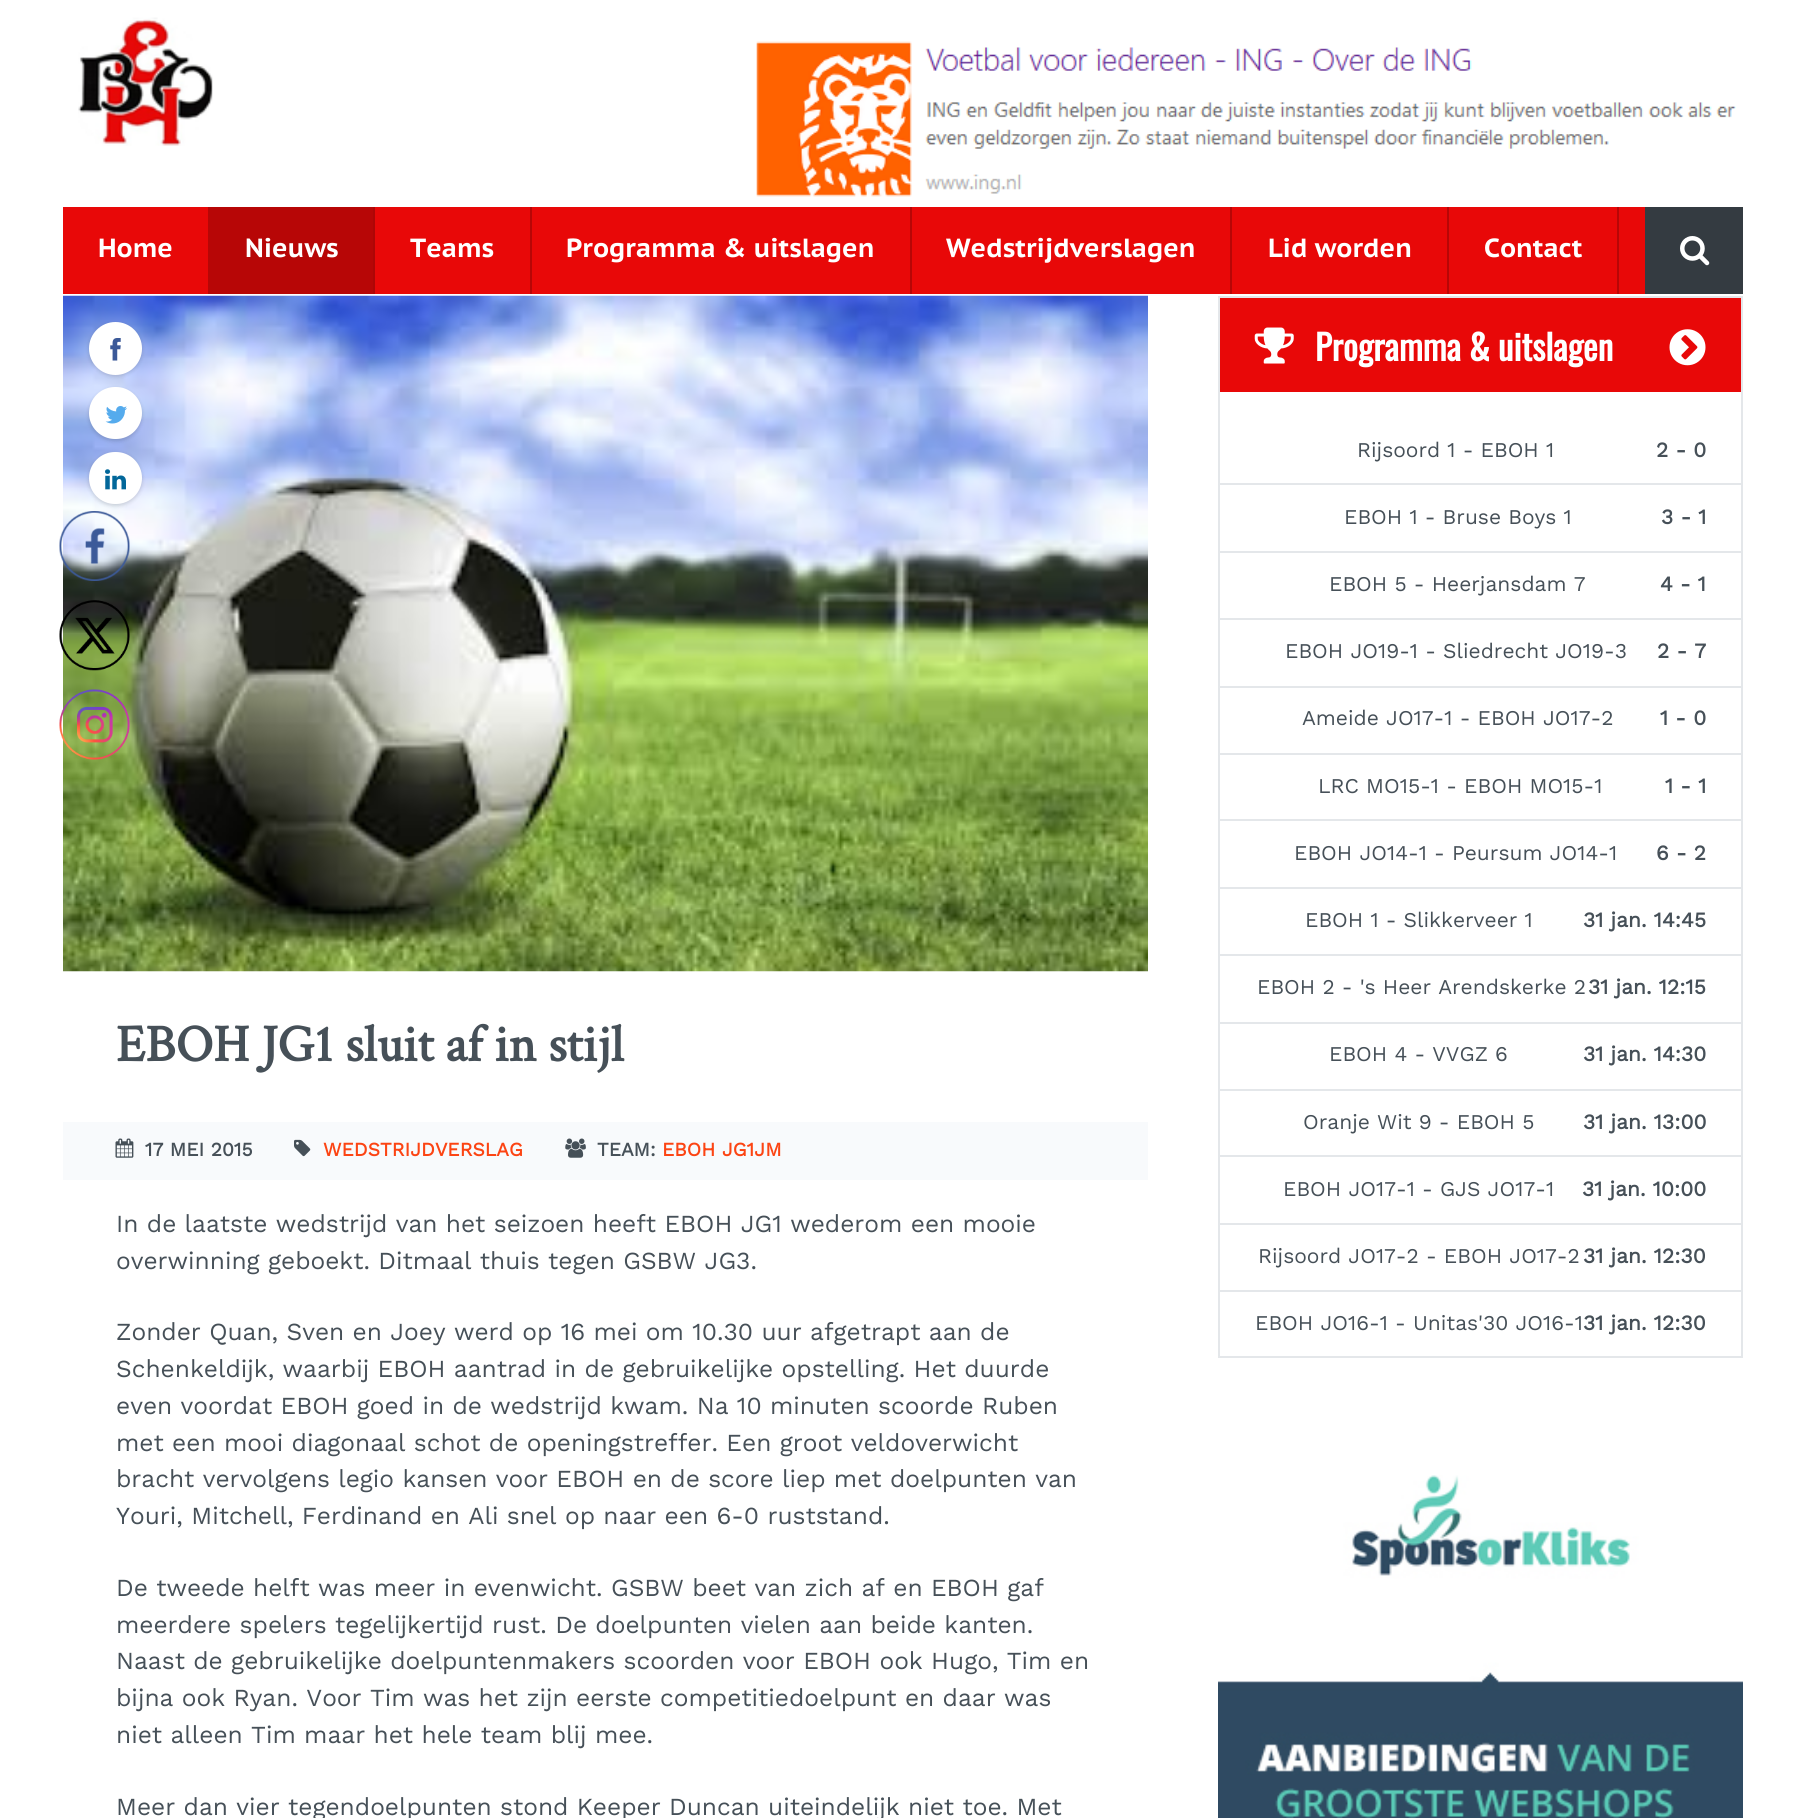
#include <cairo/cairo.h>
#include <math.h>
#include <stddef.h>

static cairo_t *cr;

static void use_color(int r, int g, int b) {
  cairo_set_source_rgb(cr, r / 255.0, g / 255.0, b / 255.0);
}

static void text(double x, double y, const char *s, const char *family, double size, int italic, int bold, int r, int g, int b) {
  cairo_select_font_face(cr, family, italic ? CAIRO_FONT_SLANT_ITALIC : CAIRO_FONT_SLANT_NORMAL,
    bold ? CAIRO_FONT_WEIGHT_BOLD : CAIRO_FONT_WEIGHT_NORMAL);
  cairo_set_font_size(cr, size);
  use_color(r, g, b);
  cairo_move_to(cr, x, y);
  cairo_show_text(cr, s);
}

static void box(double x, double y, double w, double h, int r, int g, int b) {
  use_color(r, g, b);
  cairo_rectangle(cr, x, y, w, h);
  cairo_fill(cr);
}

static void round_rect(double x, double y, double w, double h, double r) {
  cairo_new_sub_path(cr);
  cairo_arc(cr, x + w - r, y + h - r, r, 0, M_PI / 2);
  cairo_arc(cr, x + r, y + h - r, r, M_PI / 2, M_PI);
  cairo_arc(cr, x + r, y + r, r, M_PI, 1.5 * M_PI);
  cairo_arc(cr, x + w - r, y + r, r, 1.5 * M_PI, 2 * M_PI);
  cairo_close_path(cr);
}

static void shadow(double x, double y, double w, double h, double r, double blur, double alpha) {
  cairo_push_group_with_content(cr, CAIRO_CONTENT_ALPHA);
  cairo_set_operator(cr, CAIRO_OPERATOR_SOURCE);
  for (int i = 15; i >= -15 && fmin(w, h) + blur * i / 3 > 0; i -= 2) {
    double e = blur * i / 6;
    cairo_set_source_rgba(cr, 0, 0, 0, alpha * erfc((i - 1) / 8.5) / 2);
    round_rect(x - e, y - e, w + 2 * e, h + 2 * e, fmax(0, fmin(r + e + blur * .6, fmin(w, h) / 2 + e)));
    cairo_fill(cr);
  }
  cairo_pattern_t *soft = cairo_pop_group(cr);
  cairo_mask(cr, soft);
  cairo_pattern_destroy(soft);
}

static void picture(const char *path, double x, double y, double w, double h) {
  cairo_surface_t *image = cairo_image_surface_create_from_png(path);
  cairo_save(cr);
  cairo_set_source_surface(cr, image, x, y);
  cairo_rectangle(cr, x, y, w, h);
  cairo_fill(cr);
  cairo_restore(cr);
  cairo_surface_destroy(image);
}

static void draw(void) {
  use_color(255, 255, 255);
  cairo_paint(cr);
  picture("img_10.png", 63, 295, 1085, 677);
  use_color(0, 0, 0);
  shadow(89, 453, 53, 53, 26.5, 2, 0.15);
  picture("img_01.png", 59, 511, 71, 70);
  picture("img_02.png", 59, 600, 71, 71);
  picture("img_03.png", 59, 689, 71, 71);
  picture("img_04.png", 78, 17, 135, 129);
  picture("img_05.png", 756, 41, 980, 156);
  box(63, 207, 1582, 87, 232, 8, 8);
  box(208, 207, 165, 87, 183, 6, 6);
  box(373, 207, 2, 87, 173, 6, 6);
  box(530, 207, 2, 87, 183, 6, 6);
  box(910, 207, 2, 87, 183, 6, 6);
  box(1230, 207, 2, 87, 183, 6, 6);
  box(1447, 207, 2, 87, 183, 6, 6);
  box(1617, 207, 2, 87, 183, 6, 6);
  box(1645, 207, 98, 87, 52, 59, 65);
  picture("img_06.png", 1680, 236, 30, 30);
  cairo_rectangle(cr, 1219, 297, 523, 1060);
  use_color(228, 231, 234);
  cairo_stroke(cr);
  box(1220, 298, 521, 94, 232, 8, 8);
  picture("img_07.png", 1254, 327, 40, 37);
  picture("img_08.png", 1669, 329, 37, 37);
  box(1220, 483, 521, 2, 228, 231, 234);
  box(1220, 551, 521, 2, 228, 231, 234);
  box(1220, 618, 521, 2, 228, 231, 234);
  box(1220, 686, 521, 2, 228, 231, 234);
  box(1220, 753, 521, 2, 228, 231, 234);
  box(1220, 819, 521, 2, 228, 231, 234);
  box(1220, 887, 521, 2, 228, 231, 234);
  box(1220, 954, 521, 2, 228, 231, 234);
  box(1220, 1022, 521, 2, 228, 231, 234);
  box(1220, 1089, 521, 2, 228, 231, 234);
  box(1220, 1155, 521, 2, 228, 231, 234);
  box(1220, 1223, 521, 2, 228, 231, 234);
  box(1220, 1290, 521, 2, 228, 231, 234);
  picture("img_09.png", 1218, 1475, 525, 343);
  use_color(0, 0, 0);
  shadow(89, 324, 53, 52, 26, 2, 0.15);
  use_color(255, 255, 255);
  cairo_arc(cr, 115.5, 348.5, 26.5, 0, 2 * M_PI);
  cairo_fill(cr);
  picture("img_11.png", 110, 338, 11, 23);
  use_color(0, 0, 0);
  shadow(89, 389, 53, 52, 26, 2, 0.15);
  use_color(255, 255, 255);
  round_rect(89, 387, 53, 52, 26);
  cairo_fill(cr);
  picture("img_12.png", 105, 406, 22, 18);
  round_rect(89, 452, 53, 52, 26);
  cairo_fill(cr);
  picture("img_13.png", 105, 469, 21, 21);
  box(63, 1122, 1085, 58, 248, 250, 252);
  picture("img_14.png", 115, 1138, 19, 20);
  picture("img_15.png", 294, 1139, 17, 18);
  picture("img_16.png", 565, 1138, 21, 20);
  text(98, 257, "Home", "PT Sans Caption", 26.25, 0, 1, 255, 255, 255);
  text(245, 257, "Nieuws", "PT Sans Caption", 26.25, 0, 1, 255, 255, 255);
  text(410, 257, "Teams", "PT Sans Caption", 26.25, 0, 1, 255, 255, 255);
  text(566, 257, "Programma & uitslagen", "PT Sans Caption", 26.25, 0, 1, 255, 255, 255);
  text(946, 257, "Wedstrijdverslagen", "PT Sans Caption", 26.25, 0, 1, 255, 255, 255);
  text(1268, 257, "Lid worden", "PT Sans Caption", 26.25, 0, 1, 255, 255, 255);
  text(1484, 257, "Contact", "PT Sans Caption", 26.25, 0, 1, 255, 255, 255);
  text(1315, 361, "Programma & uitslagen", "Oswald", 35, 0, 1, 255, 255, 255);
  text(1357, 457, "Rijsoord 1 - EBOH 1", "Work Sans", 21, 0, 0, 70, 80, 88);
  text(1656, 457, "2 - 0", "Work Sans", 21, 0, 1, 70, 80, 88);
  text(1344, 524, "EBOH 1 - Bruse Boys 1", "Work Sans", 21, 0, 0, 70, 80, 88);
  text(1661, 524, "3 - 1", "Work Sans", 21, 0, 1, 70, 80, 88);
  text(1329, 591, "EBOH 5 - Heerjansdam 7", "Work Sans", 21, 0, 0, 70, 80, 88);
  text(1660, 591, "4 - 1", "Work Sans", 21, 0, 1, 70, 80, 88);
  text(1285, 658, "EBOH JO19-1 - Sliedrecht JO19-3", "Work Sans", 21, 0, 0, 70, 80, 88);
  text(1657, 658, "2 - 7", "Work Sans", 21, 0, 1, 70, 80, 88);
  text(1302, 725, "Ameide JO17-1 - EBOH JO17-2", "Work Sans", 21, 0, 0, 70, 80, 88);
  text(1660, 725, "1 - 0", "Work Sans", 21, 0, 1, 70, 80, 88);
  text(1318, 793, "LRC MO15-1 - EBOH MO15-1", "Work Sans", 21, 0, 0, 70, 80, 88);
  text(1665, 793, "1 - 1", "Work Sans", 21, 0, 1, 70, 80, 88);
  text(1294, 860, "EBOH JO14-1 - Peursum JO14-1", "Work Sans", 21, 0, 0, 70, 80, 88);
  text(1656, 860, "6 - 2", "Work Sans", 21, 0, 1, 70, 80, 88);
  text(1305, 927, "EBOH 1 - Slikkerveer 1", "Work Sans", 21, 0, 0, 70, 80, 88);
  text(1583, 927, "31 jan. 14:45", "Work Sans", 21, 0, 1, 70, 80, 88);
  text(1257, 994, "EBOH 2 - 's Heer Arendskerke 2", "Work Sans", 21, 0, 0, 70, 80, 88);
  text(1588, 994, "31 jan. 12:15", "Work Sans", 21, 0, 1, 70, 80, 88);
  text(1329, 1061, "EBOH 4 - VVGZ 6", "Work Sans", 21, 0, 0, 70, 80, 88);
  text(1583, 1061, "31 jan. 14:30", "Work Sans", 21, 0, 1, 70, 80, 88);
  text(1303, 1129, "Oranje Wit 9 - EBOH 5", "Work Sans", 21, 0, 0, 70, 80, 88);
  text(1583, 1129, "31 jan. 13:00", "Work Sans", 21, 0, 1, 70, 80, 88);
  text(1283, 1196, "EBOH JO17-1 - GJS JO17-1", "Work Sans", 21, 0, 0, 70, 80, 88);
  text(1582, 1196, "31 jan. 10:00", "Work Sans", 21, 0, 1, 70, 80, 88);
  text(1258, 1263, "Rijsoord JO17-2 - EBOH JO17-2", "Work Sans", 21, 0, 0, 70, 80, 88);
  text(1583, 1263, "31 jan. 12:30", "Work Sans", 21, 0, 1, 70, 80, 88);
  text(1255, 1330, "EBOH JO16-1 - Unitas'30 JO16-1", "Work Sans", 21, 0, 0, 70, 80, 88);
  text(1583, 1330, "31 jan. 12:30", "Work Sans", 21, 0, 1, 70, 80, 88);
  text(116, 1061, "EBOH JG1 sluit af in stijl", "Crimson Text", 52.5, 0, 1, 70, 80, 88);
  text(145, 1156, "17 MEI 2015", "Work Sans", 19.25, 0, 1, 70, 80, 88);
  text(323, 1156, "WEDSTRIJDVERSLAG", "Work Sans", 19.25, 0, 1, 252, 68, 19);
  text(597, 1156, "TEAM:", "Work Sans", 19.25, 0, 1, 70, 80, 88);
  text(662, 1156, "EBOH JG1JM", "Work Sans", 19.25, 0, 1, 252, 68, 19);
  text(116, 1232, "In de laatste wedstrijd van het seizoen heeft EBOH JG1 wederom een mooie", "Work Sans", 24.5, 0, 0, 70, 80, 88);
  text(116, 1269, "overwinning geboekt. Ditmaal thuis tegen GSBW JG3.", "Work Sans", 24.5, 0, 0, 70, 80, 88);
  text(116, 1340, "Zonder Quan, Sven en Joey werd op 16 mei om 10.30 uur afgetrapt aan de", "Work Sans", 24.5, 0, 0, 70, 80, 88);
  text(116, 1377, "Schenkeldijk, waarbij EBOH aantrad in de gebruikelijke opstelling. Het duurde", "Work Sans", 24.5, 0, 0, 70, 80, 88);
  text(116, 1414, "even voordat EBOH goed in de wedstrijd kwam. Na 10 minuten scoorde Ruben", "Work Sans", 24.5, 0, 0, 70, 80, 88);
  text(116, 1451, "met een mooi diagonaal schot de openingstreffer. Een groot veldoverwicht", "Work Sans", 24.5, 0, 0, 70, 80, 88);
  text(116, 1487, "bracht vervolgens legio kansen voor EBOH en de score liep met doelpunten van", "Work Sans", 24.5, 0, 0, 70, 80, 88);
  text(116, 1524, "Youri, Mitchell, Ferdinand en Ali snel op naar een 6-0 ruststand.", "Work Sans", 24.5, 0, 0, 70, 80, 88);
  text(116, 1596, "De tweede helft was meer in evenwicht. GSBW beet van zich af en EBOH gaf", "Work Sans", 24.5, 0, 0, 70, 80, 88);
  text(116, 1633, "meerdere spelers tegelijkertijd rust. De doelpunten vielen aan beide kanten.", "Work Sans", 24.5, 0, 0, 70, 80, 88);
  text(116, 1669, "Naast de gebruikelijke doelpuntenmakers scoorden voor EBOH ook Hugo, Tim en", "Work Sans", 24.5, 0, 0, 70, 80, 88);
  text(116, 1706, "bijna ook Ryan. Voor Tim was het zijn eerste competitiedoelpunt en daar was", "Work Sans", 24.5, 0, 0, 70, 80, 88);
  text(116, 1743, "niet alleen Tim maar het hele team blij mee.", "Work Sans", 24.5, 0, 0, 70, 80, 88);
  text(116, 1815, "Meer dan vier tegendoelpunten stond Keeper Duncan uiteindelijk niet toe. Met", "Work Sans", 24.5, 0, 0, 70, 80, 88);
}

int main(void) {
  cairo_surface_t *surface = cairo_image_surface_create(CAIRO_FORMAT_RGB24, 1805, 1818);
  cr = cairo_create(surface);
  cairo_font_options_t *options = cairo_font_options_create();
  cairo_font_options_set_hint_metrics(options, CAIRO_HINT_METRICS_OFF);
  cairo_font_options_set_hint_style(options, CAIRO_HINT_STYLE_NONE);
  cairo_set_font_options(cr, options);
  cairo_set_miter_limit(cr, 4);
  draw();
  cairo_surface_write_to_png(surface, "out.png");
  cairo_font_options_destroy(options);
  cairo_destroy(cr);
  cairo_surface_destroy(surface);
  return 0;
}
